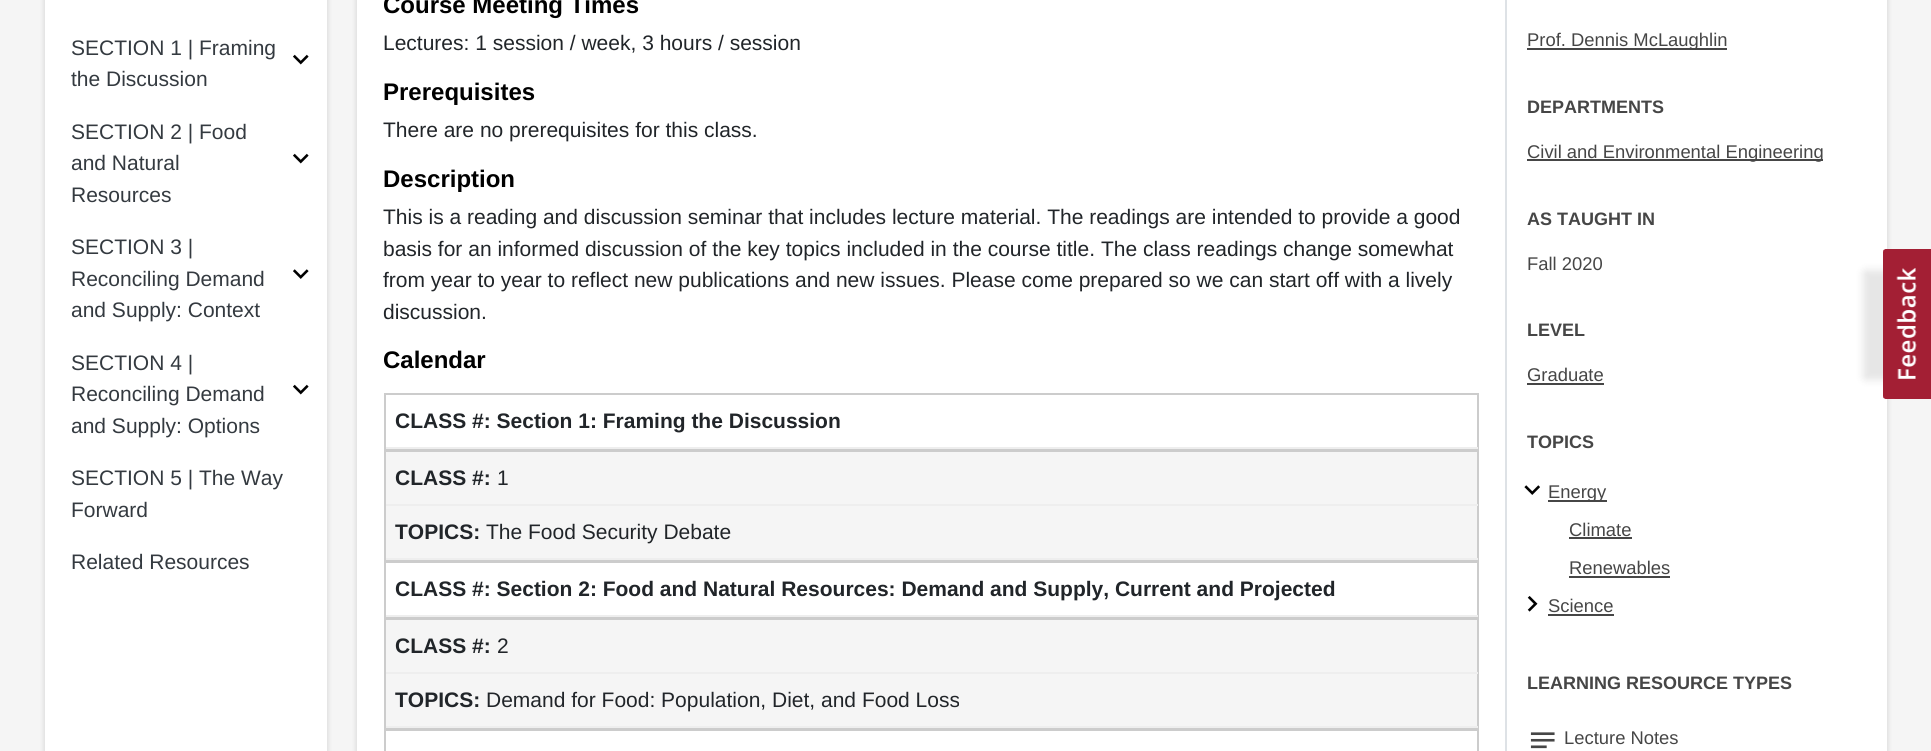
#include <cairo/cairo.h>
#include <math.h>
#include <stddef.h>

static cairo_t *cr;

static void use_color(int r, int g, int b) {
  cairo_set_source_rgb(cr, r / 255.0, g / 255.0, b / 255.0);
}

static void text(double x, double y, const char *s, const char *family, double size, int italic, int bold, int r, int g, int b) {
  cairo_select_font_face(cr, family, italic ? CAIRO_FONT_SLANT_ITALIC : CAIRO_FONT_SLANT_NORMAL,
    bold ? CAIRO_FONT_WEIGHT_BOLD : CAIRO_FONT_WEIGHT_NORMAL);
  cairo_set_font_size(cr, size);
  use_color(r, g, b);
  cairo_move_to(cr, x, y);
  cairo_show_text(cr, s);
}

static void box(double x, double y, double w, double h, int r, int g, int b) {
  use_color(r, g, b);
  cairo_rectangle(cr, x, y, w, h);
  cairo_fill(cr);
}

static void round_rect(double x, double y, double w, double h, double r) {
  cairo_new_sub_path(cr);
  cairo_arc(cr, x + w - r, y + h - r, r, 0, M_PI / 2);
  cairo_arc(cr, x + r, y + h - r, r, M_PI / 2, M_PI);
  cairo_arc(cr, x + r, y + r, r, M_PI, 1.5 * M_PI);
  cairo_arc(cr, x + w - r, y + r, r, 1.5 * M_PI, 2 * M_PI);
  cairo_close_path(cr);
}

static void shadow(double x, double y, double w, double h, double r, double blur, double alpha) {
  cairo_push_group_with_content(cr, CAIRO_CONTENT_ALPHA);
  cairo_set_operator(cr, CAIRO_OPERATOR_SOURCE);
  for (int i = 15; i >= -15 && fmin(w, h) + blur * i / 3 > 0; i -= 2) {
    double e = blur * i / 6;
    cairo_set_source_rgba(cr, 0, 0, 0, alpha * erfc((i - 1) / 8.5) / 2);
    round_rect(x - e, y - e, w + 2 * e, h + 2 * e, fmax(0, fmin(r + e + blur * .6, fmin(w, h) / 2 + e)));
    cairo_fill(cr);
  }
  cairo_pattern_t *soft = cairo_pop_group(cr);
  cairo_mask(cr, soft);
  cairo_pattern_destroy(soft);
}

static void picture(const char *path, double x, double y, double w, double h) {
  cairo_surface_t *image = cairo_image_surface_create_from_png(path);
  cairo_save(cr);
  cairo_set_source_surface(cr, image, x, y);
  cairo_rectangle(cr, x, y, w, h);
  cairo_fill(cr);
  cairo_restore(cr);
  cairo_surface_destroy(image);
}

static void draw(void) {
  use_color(245, 245, 245);
  cairo_paint(cr);
  use_color(0, 0, 0);
  shadow(45, -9, 282, 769, 0, 3, 0.16);
  box(45, 0, 282, 751, 255, 255, 255);
  picture("img_01.png", 293, 54, 16, 11);
  picture("img_01.png", 293, 153, 16, 11);
  picture("img_02.png", 293, 269, 16, 10);
  picture("img_01.png", 293, 384, 16, 11);
  use_color(0, 0, 0);
  shadow(357, -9, 1530, 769, 0, 3, 0.16);
  box(357, 0, 1530, 751, 255, 255, 255);
  cairo_rectangle(cr, 385, 394, 1093, 55);
  use_color(204, 204, 204);
  cairo_stroke(cr);
  box(386, 447, 1092, 2, 238, 238, 238);
  box(386, 452, 1091, 106, 245, 245, 245);
  cairo_rectangle(cr, 385, 451, 1093, 109);
  use_color(204, 204, 204);
  cairo_stroke(cr);
  box(386, 504, 1092, 2, 238, 238, 238);
  box(386, 558, 1092, 2, 238, 238, 238);
  cairo_rectangle(cr, 385, 562, 1093, 55);
  use_color(204, 204, 204);
  cairo_stroke(cr);
  box(386, 615, 1092, 2, 238, 238, 238);
  box(386, 620, 1091, 106, 245, 245, 245);
  cairo_rectangle(cr, 385, 619, 1093, 109);
  use_color(204, 204, 204);
  cairo_stroke(cr);
  box(386, 672, 1092, 2, 238, 238, 238);
  box(386, 726, 1092, 2, 238, 238, 238);
  cairo_rectangle(cr, 385, 730, 1093, 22);
  use_color(204, 204, 204);
  cairo_stroke(cr);
  box(1505, 0, 2, 751, 222, 226, 230);
  box(1527, 48, 200, 2, 70, 70, 70);
  box(1527, 159, 296, 2, 70, 70, 70);
  box(1527, 383, 77, 2, 70, 70, 70);
  picture("img_03.png", 1524, 485, 16, 10);
  box(1548, 500, 59, 2, 70, 70, 70);
  box(1569, 537, 63, 2, 70, 70, 70);
  box(1569, 576, 101, 2, 70, 70, 70);
  picture("img_04.png", 1527, 596, 11, 16);
  box(1548, 614, 66, 2, 70, 70, 70);
  picture("img_05.png", 1530, 732, 25, 17);
  use_color(0, 0, 0);
  shadow(1863, 270, 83, 110, 3, 4, 0.1);
  picture("img_06.png", 1883, 249, 48, 150);
  text(71, 55, "SECTION 1 | Framing", "Liberation Sans", 21, 0, 0, 52, 58, 64);
  text(71, 86, "the Discussion", "Liberation Sans", 21, 0, 0, 52, 58, 64);
  text(71, 139, "SECTION 2 | Food", "Liberation Sans", 21, 0, 0, 52, 58, 64);
  text(71, 170, "and Natural", "Liberation Sans", 21, 0, 0, 52, 58, 64);
  text(71, 202, "Resources", "Liberation Sans", 21, 0, 0, 52, 58, 64);
  text(71, 254, "SECTION 3 |", "Liberation Sans", 21, 0, 0, 52, 58, 64);
  text(71, 286, "Reconciling Demand", "Liberation Sans", 21, 0, 0, 52, 58, 64);
  text(71, 317, "and Supply: Context", "Liberation Sans", 21, 0, 0, 52, 58, 64);
  text(71, 370, "SECTION 4 |", "Liberation Sans", 21, 0, 0, 52, 58, 64);
  text(71, 401, "Reconciling Demand", "Liberation Sans", 21, 0, 0, 52, 58, 64);
  text(71, 433, "and Supply: Options", "Liberation Sans", 21, 0, 0, 52, 58, 64);
  text(71, 485, "SECTION 5 | The Way", "Liberation Sans", 21, 0, 0, 52, 58, 64);
  text(71, 517, "Forward", "Liberation Sans", 21, 0, 0, 52, 58, 64);
  text(71, 569, "Related Resources", "Liberation Sans", 21, 0, 0, 52, 58, 64);
  text(383, 13, "Course Meeting Times", "Liberation Sans", 24, 0, 1, 0, 0, 0);
  text(383, 50, "Lectures: 1 session / week, 3 hours / session", "Liberation Sans", 21, 0, 0, 33, 37, 41);
  text(383, 100, "Prerequisites", "Liberation Sans", 24, 0, 1, 0, 0, 0);
  text(383, 137, "There are no prerequisites for this class.", "Liberation Sans", 21, 0, 0, 33, 37, 41);
  text(383, 187, "Description", "Liberation Sans", 24, 0, 1, 0, 0, 0);
  text(383, 224, "This is a reading and discussion seminar that includes lecture material. The readings are intended to provide a good", "Liberation Sans", 21, 0, 0, 33, 37, 41);
  text(383, 256, "basis for an informed discussion of the key topics included in the course title. The class readings change somewhat", "Liberation Sans", 21, 0, 0, 33, 37, 41);
  text(383, 287, "from year to year to reflect new publications and new issues. Please come prepared so we can start off with a lively", "Liberation Sans", 21, 0, 0, 33, 37, 41);
  text(383, 319, "discussion.", "Liberation Sans", 21, 0, 0, 33, 37, 41);
  text(383, 368, "Calendar", "Liberation Sans", 24, 0, 1, 0, 0, 0);
  text(395, 428, "CLASS #: Section 1: Framing the Discussion", "Liberation Sans", 21, 0, 1, 33, 37, 41);
  text(395, 485, "CLASS #:", "Liberation Sans", 21, 0, 1, 33, 37, 41);
  text(497, 485, "1", "Liberation Sans", 21, 0, 0, 33, 37, 41);
  text(395, 539, "TOPICS:", "Liberation Sans", 21, 0, 1, 33, 37, 41);
  text(486, 539, "The Food Security Debate", "Liberation Sans", 21, 0, 0, 33, 37, 41);
  text(395, 596, "CLASS #: Section 2: Food and Natural Resources: Demand and Supply, Current and Projected", "Liberation Sans", 21, 0, 1, 33, 37, 41);
  text(395, 653, "CLASS #:", "Liberation Sans", 21, 0, 1, 33, 37, 41);
  text(497, 653, "2", "Liberation Sans", 21, 0, 0, 33, 37, 41);
  text(395, 707, "TOPICS:", "Liberation Sans", 21, 0, 1, 33, 37, 41);
  text(486, 707, "Demand for Food: Population, Diet, and Food Loss", "Liberation Sans", 21, 0, 0, 33, 37, 41);
  text(1527, 46, "Prof. Dennis McLaughlin", "Liberation Sans", 18.4, 0, 0, 70, 70, 70);
  text(1527, 113, "DEPARTMENTS", "Liberation Sans", 18, 0, 1, 70, 70, 70);
  text(1527, 158, "Civil and Environmental Engineering", "Liberation Sans", 18.4, 0, 0, 70, 70, 70);
  text(1527, 225, "AS TAUGHT IN", "Liberation Sans", 18, 0, 1, 70, 70, 70);
  text(1527, 270, "Fall 2020", "Liberation Sans", 18.4, 0, 0, 70, 70, 70);
  text(1527, 336, "LEVEL", "Liberation Sans", 18, 0, 1, 70, 70, 70);
  text(1527, 381, "Graduate", "Liberation Sans", 18.4, 0, 0, 70, 70, 70);
  text(1527, 448, "TOPICS", "Liberation Sans", 18, 0, 1, 70, 70, 70);
  text(1548, 498, "Energy", "Liberation Sans", 18.4, 0, 0, 70, 70, 70);
  text(1569, 536, "Climate", "Liberation Sans", 18.4, 0, 0, 70, 70, 70);
  text(1569, 574, "Renewables", "Liberation Sans", 18.4, 0, 0, 70, 70, 70);
  text(1548, 612, "Science", "Liberation Sans", 18.4, 0, 0, 70, 70, 70);
  text(1527, 689, "LEARNING RESOURCE TYPES", "Liberation Sans", 18, 0, 1, 70, 70, 70);
  text(1564, 744, "Lecture Notes", "Liberation Sans", 18.4, 0, 0, 70, 70, 70);
}

int main(void) {
  cairo_surface_t *surface = cairo_image_surface_create(CAIRO_FORMAT_RGB24, 1931, 751);
  cr = cairo_create(surface);
  cairo_font_options_t *options = cairo_font_options_create();
  cairo_font_options_set_hint_metrics(options, CAIRO_HINT_METRICS_OFF);
  cairo_font_options_set_hint_style(options, CAIRO_HINT_STYLE_NONE);
  cairo_set_font_options(cr, options);
  cairo_set_miter_limit(cr, 4);
  draw();
  cairo_surface_write_to_png(surface, "out.png");
  cairo_font_options_destroy(options);
  cairo_destroy(cr);
  cairo_surface_destroy(surface);
  return 0;
}
